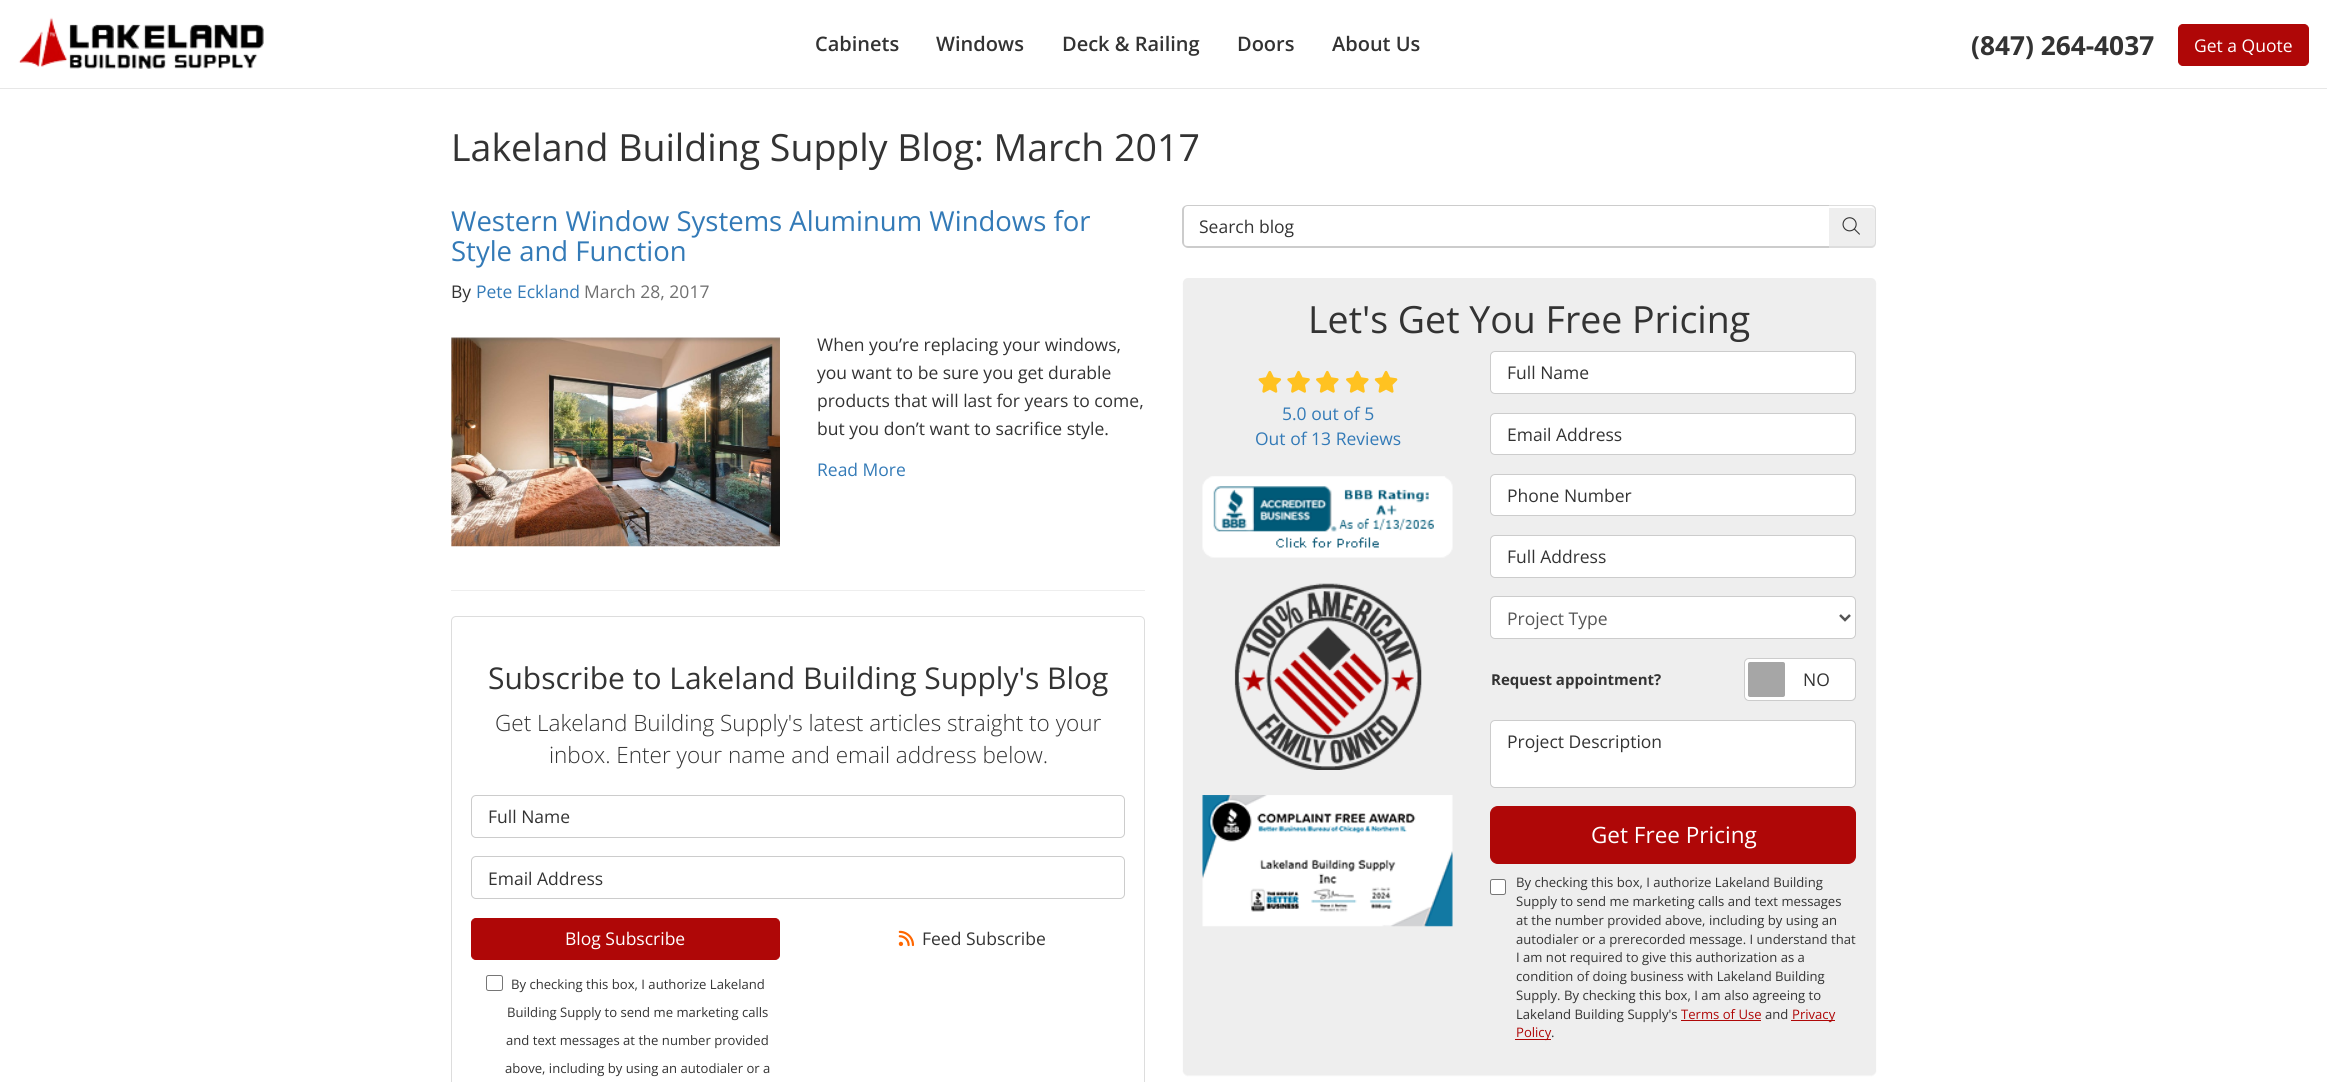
#include <cairo/cairo.h>
#include <math.h>
#include <stddef.h>

static cairo_t *cr;

static void use_color(int r, int g, int b) {
  cairo_set_source_rgb(cr, r / 255.0, g / 255.0, b / 255.0);
}

static void text(double x, double y, const char *s, const char *family, double size, int italic, int bold, int r, int g, int b) {
  cairo_select_font_face(cr, family, italic ? CAIRO_FONT_SLANT_ITALIC : CAIRO_FONT_SLANT_NORMAL,
    bold ? CAIRO_FONT_WEIGHT_BOLD : CAIRO_FONT_WEIGHT_NORMAL);
  cairo_set_font_size(cr, size);
  use_color(r, g, b);
  cairo_move_to(cr, x, y);
  cairo_show_text(cr, s);
}

static void box(double x, double y, double w, double h, int r, int g, int b) {
  use_color(r, g, b);
  cairo_rectangle(cr, x, y, w, h);
  cairo_fill(cr);
}

static void round_rect(double x, double y, double w, double h, double r) {
  cairo_new_sub_path(cr);
  cairo_arc(cr, x + w - r, y + h - r, r, 0, M_PI / 2);
  cairo_arc(cr, x + r, y + h - r, r, M_PI / 2, M_PI);
  cairo_arc(cr, x + r, y + r, r, M_PI, 1.5 * M_PI);
  cairo_arc(cr, x + w - r, y + r, r, 1.5 * M_PI, 2 * M_PI);
  cairo_close_path(cr);
}

static void shadow(double x, double y, double w, double h, double r, double blur, double alpha) {
  cairo_push_group_with_content(cr, CAIRO_CONTENT_ALPHA);
  cairo_set_operator(cr, CAIRO_OPERATOR_SOURCE);
  for (int i = 15; i >= -15 && fmin(w, h) + blur * i / 3 > 0; i -= 2) {
    double e = blur * i / 6;
    cairo_set_source_rgba(cr, 0, 0, 0, alpha * erfc((i - 1) / 8.5) / 2);
    round_rect(x - e, y - e, w + 2 * e, h + 2 * e, fmax(0, fmin(r + e + blur * .6, fmin(w, h) / 2 + e)));
    cairo_fill(cr);
  }
  cairo_pattern_t *soft = cairo_pop_group(cr);
  cairo_mask(cr, soft);
  cairo_pattern_destroy(soft);
}

static void picture(const char *path, double x, double y, double w, double h) {
  cairo_surface_t *image = cairo_image_surface_create_from_png(path);
  cairo_save(cr);
  cairo_set_source_surface(cr, image, x, y);
  cairo_rectangle(cr, x, y, w, h);
  cairo_fill(cr);
  cairo_restore(cr);
  cairo_surface_destroy(image);
}

static void draw(void) {
  use_color(255, 255, 255);
  cairo_paint(cr);
  box(0, 88, 2327, 1, 231, 231, 231);
  picture("img_01.png", 18, 17, 246, 52);
  use_color(175, 7, 7);
  round_rect(2178.5, 24.5, 130, 41, 4.5);
  cairo_fill_preserve(cr);
  cairo_set_line_width(cr, 1);
  cairo_stroke(cr);
  picture("img_02.png", 451, 337, 329, 210);
  box(451, 590, 694, 1, 238, 238, 238);
  round_rect(451.5, 616.5, 693, 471, 4.5);
  use_color(221, 221, 221);
  cairo_stroke(cr);
  round_rect(471.5, 795.5, 653, 42, 4.5);
  use_color(204, 204, 204);
  cairo_stroke(cr);
  round_rect(471.5, 856.5, 653, 42, 4.5);
  cairo_stroke(cr);
  use_color(175, 7, 7);
  round_rect(471.5, 918.5, 308, 41, 4.5);
  cairo_fill_preserve(cr);
  cairo_stroke(cr);
  round_rect(486.5, 975.5, 16, 15, 2);
  use_color(118, 118, 118);
  cairo_stroke(cr);
  picture("img_03.png", 898, 930, 17, 17);
  use_color(238, 238, 238);
  cairo_new_path(cr);
  cairo_move_to(cr, 1828, 205);
  cairo_line_to(cr, 1871, 205);
  cairo_curve_to(cr, 1874, 205, 1876, 207, 1876, 210);
  cairo_line_to(cr, 1876, 243);
  cairo_curve_to(cr, 1876, 246, 1874, 248, 1871, 248);
  cairo_line_to(cr, 1828, 248);
  cairo_close_path(cr);
  cairo_fill(cr);
  use_color(255, 255, 255);
  cairo_new_path(cr);
  cairo_move_to(cr, 1828, 208);
  cairo_line_to(cr, 1871, 208);
  cairo_curve_to(cr, 1873, 208, 1875, 209, 1875, 211);
  cairo_line_to(cr, 1875, 210);
  cairo_curve_to(cr, 1875, 208, 1873, 206, 1871, 206);
  cairo_line_to(cr, 1828, 206);
  cairo_close_path(cr);
  cairo_fill(cr);
  use_color(221, 221, 221);
  cairo_set_fill_rule(cr, CAIRO_FILL_RULE_EVEN_ODD);
  cairo_new_path(cr);
  cairo_move_to(cr, 1828, 205);
  cairo_line_to(cr, 1871, 205);
  cairo_curve_to(cr, 1874, 205, 1876, 207, 1876, 210);
  cairo_line_to(cr, 1876, 242);
  cairo_curve_to(cr, 1876, 245, 1874, 248, 1871, 248);
  cairo_line_to(cr, 1828, 248);
  cairo_close_path(cr);
  cairo_move_to(cr, 1828, 206);
  cairo_line_to(cr, 1871, 206);
  cairo_curve_to(cr, 1873, 206, 1875, 208, 1875, 210);
  cairo_line_to(cr, 1875, 242);
  cairo_curve_to(cr, 1875, 245, 1873, 246, 1871, 246);
  cairo_line_to(cr, 1828, 246);
  cairo_close_path(cr);
  cairo_fill(cr);
  use_color(255, 255, 255);
  cairo_new_path(cr);
  cairo_move_to(cr, 1188, 205);
  cairo_line_to(cr, 1829, 205);
  cairo_line_to(cr, 1829, 248);
  cairo_line_to(cr, 1188, 248);
  cairo_curve_to(cr, 1185, 248, 1183, 246, 1183, 243);
  cairo_line_to(cr, 1183, 210);
  cairo_curve_to(cr, 1183, 207, 1185, 205, 1188, 205);
  cairo_close_path(cr);
  cairo_fill(cr);
  use_color(204, 204, 204);
  cairo_new_path(cr);
  cairo_move_to(cr, 1188, 205);
  cairo_line_to(cr, 1829, 205);
  cairo_line_to(cr, 1829, 248);
  cairo_line_to(cr, 1188, 248);
  cairo_curve_to(cr, 1185, 248, 1182, 245, 1182, 242);
  cairo_line_to(cr, 1182, 210);
  cairo_curve_to(cr, 1182, 207, 1185, 205, 1188, 205);
  cairo_close_path(cr);
  cairo_move_to(cr, 1188, 206);
  cairo_line_to(cr, 1829, 206);
  cairo_line_to(cr, 1829, 246);
  cairo_line_to(cr, 1188, 246);
  cairo_curve_to(cr, 1185, 246, 1184, 245, 1184, 242);
  cairo_line_to(cr, 1184, 210);
  cairo_curve_to(cr, 1184, 208, 1185, 206, 1188, 206);
  cairo_close_path(cr);
  cairo_fill(cr);
  picture("img_04.png", 1842, 217, 18, 18);
  use_color(0, 0, 0);
  shadow(1183, 279, 693, 797, 5, 0.5, 0.05);
  use_color(238, 238, 238);
  round_rect(1183, 278, 693, 797, 5);
  cairo_fill(cr);
  picture("img_05.png", 1258, 370, 24, 23);
  picture("img_06.png", 1287, 370, 23, 23);
  picture("img_07.png", 1316, 370, 23, 23);
  picture("img_07.png", 1346, 370, 23, 23);
  picture("img_08.png", 1374, 370, 24, 23);
  picture("img_09.png", 1202, 476, 251, 82);
  picture("img_10.png", 1234, 583, 188, 187);
  picture("img_11.png", 1202, 795, 251, 132);
  use_color(255, 255, 255);
  round_rect(1490.5, 351.5, 365, 42, 4.5);
  cairo_fill_preserve(cr);
  use_color(204, 204, 204);
  cairo_stroke(cr);
  use_color(255, 255, 255);
  round_rect(1490.5, 413.5, 365, 41, 4.5);
  cairo_fill_preserve(cr);
  use_color(204, 204, 204);
  cairo_stroke(cr);
  use_color(255, 255, 255);
  round_rect(1490.5, 474.5, 365, 41, 4.5);
  cairo_fill_preserve(cr);
  use_color(204, 204, 204);
  cairo_stroke(cr);
  use_color(255, 255, 255);
  round_rect(1490.5, 535.5, 365, 42, 4.5);
  cairo_fill_preserve(cr);
  use_color(204, 204, 204);
  cairo_stroke(cr);
  use_color(255, 255, 255);
  round_rect(1490.5, 596.5, 365, 42, 4.5);
  cairo_fill_preserve(cr);
  use_color(204, 204, 204);
  cairo_stroke(cr);
  cairo_new_path(cr);
  cairo_move_to(cr, 1840, 615);
  cairo_line_to(cr, 1845, 620);
  cairo_line_to(cr, 1850, 615);
  use_color(85, 85, 85);
  cairo_set_line_width(cr, 2.5);
  cairo_stroke(cr);
  round_rect(1744.5, 658.5, 111, 42, 4.5);
  use_color(204, 204, 204);
  cairo_set_line_width(cr, 1);
  cairo_stroke(cr);
  use_color(255, 255, 255);
  round_rect(1745, 659, 110, 41, 5);
  cairo_fill(cr);
  use_color(166, 166, 166);
  round_rect(1746.5, 660.5, 40, 38, 3.5);
  cairo_fill_preserve(cr);
  use_color(255, 255, 255);
  cairo_set_line_width(cr, 3);
  cairo_stroke(cr);
  round_rect(1490.5, 720.5, 365, 67, 4.5);
  cairo_fill_preserve(cr);
  use_color(204, 204, 204);
  cairo_set_line_width(cr, 1);
  cairo_stroke(cr);
  use_color(175, 7, 7);
  round_rect(1490.5, 806.5, 365, 57, 7.5);
  cairo_fill_preserve(cr);
  cairo_stroke(cr);
  use_color(255, 255, 255);
  round_rect(1490.5, 879.5, 15, 15, 2);
  cairo_fill_preserve(cr);
  use_color(118, 118, 118);
  cairo_stroke(cr);
  box(1681, 1020, 80, 1, 175, 7, 7);
  box(1791, 1020, 44, 1, 175, 7, 7);
  box(1515, 1039, 36, 1, 175, 7, 7);
  text(815, 51, "Cabinets", "Open Sans SemiBold", 20, 0, 0, 51, 51, 51);
  text(936, 51, "Windows", "Open Sans SemiBold", 20, 0, 0, 51, 51, 51);
  text(1062, 51, "Deck & Railing", "Open Sans SemiBold", 20, 0, 0, 51, 51, 51);
  text(1237, 51, "Doors", "Open Sans SemiBold", 20, 0, 0, 51, 51, 51);
  text(1332, 51, "About Us", "Open Sans SemiBold", 20, 0, 0, 51, 51, 51);
  text(1971, 55, "(847) 264-4037", "Open Sans", 26.25, 0, 1, 51, 51, 51);
  text(2194, 52, "Get a Quote", "Open Sans", 17.5, 0, 0, 255, 255, 255);
  text(451, 161, "Lakeland Building Supply Blog: March 2017", "Open Sans", 37.5, 0, 0, 51, 51, 51);
  text(451, 231, "Western Window Systems Aluminum Windows for", "Open Sans", 27.5, 0, 0, 51, 122, 183);
  text(451, 261, "Style and Function", "Open Sans", 27.5, 0, 0, 51, 122, 183);
  text(451, 298, "By", "Open Sans", 17.5, 0, 0, 51, 51, 51);
  text(476, 298, "Pete Eckland", "Open Sans", 17.5, 0, 0, 51, 122, 183);
  text(584, 298, "March 28, 2017", "Open Sans", 17.5, 0, 0, 112, 112, 112);
  text(817, 351, "When you’re replacing your windows,", "Open Sans", 17.5, 0, 0, 51, 51, 51);
  text(817, 379, "you want to be sure you get durable", "Open Sans", 17.5, 0, 0, 51, 51, 51);
  text(817, 407, "products that will last for years to come,", "Open Sans", 17.5, 0, 0, 51, 51, 51);
  text(817, 435, "but you don’t want to sacrifice style.", "Open Sans", 17.5, 0, 0, 51, 51, 51);
  text(817, 476, "Read More", "Open Sans", 17.5, 0, 0, 51, 122, 183);
  text(488, 689, "Subscribe to Lakeland Building Supply's Blog", "Open Sans", 30, 0, 0, 51, 51, 51);
  text(495, 731, "Get Lakeland Building Supply's latest articles straight to your", "Open Sans Light", 22.5, 0, 0, 51, 51, 51);
  text(549, 763, "inbox. Enter your name and email address below.", "Open Sans Light", 22.5, 0, 0, 51, 51, 51);
  text(488, 823, "Full Name", "Open Sans", 17.5, 0, 0, 51, 51, 51);
  text(488, 885, "Email Address", "Open Sans", 17.5, 0, 0, 51, 51, 51);
  text(565, 945, "Blog Subscribe", "Open Sans", 17.5, 0, 0, 255, 255, 255);
  text(511, 989, "By checking this box, I authorize Lakeland", "Open Sans", 13.1, 0, 0, 51, 51, 51);
  text(507, 1017, "Building Supply to send me marketing calls", "Open Sans", 13.1, 0, 0, 51, 51, 51);
  text(506, 1045, "and text messages at the number provided", "Open Sans", 13.1, 0, 0, 51, 51, 51);
  text(505, 1073, "above, including by using an autodialer or a", "Open Sans", 13.1, 0, 0, 51, 51, 51);
  text(922, 945, "Feed Subscribe", "Open Sans", 17.5, 0, 0, 51, 51, 51);
  text(1199, 233, "Search blog", "Open Sans", 17.5, 0, 0, 51, 51, 51);
  text(1308, 333, "Let's Get You Free Pricing", "Open Sans", 37.5, 0, 0, 51, 51, 51);
  text(1282, 420, "5.0 out of 5", "Open Sans", 17.5, 0, 0, 51, 122, 183);
  text(1255, 445, "Out of 13 Reviews", "Open Sans", 17.5, 0, 0, 51, 122, 183);
  text(1507, 379, "Full Name", "Open Sans", 17.5, 0, 0, 51, 51, 51);
  text(1507, 441, "Email Address", "Open Sans", 17.5, 0, 0, 51, 51, 51);
  text(1507, 502, "Phone Number", "Open Sans", 17.5, 0, 0, 51, 51, 51);
  text(1507, 563, "Full Address", "Open Sans", 17.5, 0, 0, 51, 51, 51);
  text(1507, 625, "Project Type", "Open Sans", 17.5, 0, 0, 85, 85, 85);
  text(1491, 685, "Request appointment?", "Open Sans", 15, 0, 1, 51, 51, 51);
  text(1803, 686, "NO", "Open Sans", 17.5, 0, 0, 51, 51, 51);
  text(1507, 748, "Project Description", "Open Sans", 17.5, 0, 0, 51, 51, 51);
  text(1591, 843, "Get Free Pricing", "Open Sans", 22.5, 0, 0, 255, 255, 255);
  text(1516, 887, "By checking this box, I authorize Lakeland Building", "Open Sans", 13.1, 0, 0, 51, 51, 51);
  text(1516, 906, "Supply to send me marketing calls and text messages", "Open Sans", 13.1, 0, 0, 51, 51, 51);
  text(1516, 925, "at the number provided above, including by using an", "Open Sans", 13.1, 0, 0, 51, 51, 51);
  text(1516, 944, "autodialer or a prerecorded message. I understand that", "Open Sans", 13.1, 0, 0, 51, 51, 51);
  text(1516, 962, "I am not required to give this authorization as a", "Open Sans", 13.1, 0, 0, 51, 51, 51);
  text(1516, 981, "condition of doing business with Lakeland Building", "Open Sans", 13.1, 0, 0, 51, 51, 51);
  text(1516, 1000, "Supply. By checking this box, I am also agreeing to", "Open Sans", 13.1, 0, 0, 51, 51, 51);
  text(1516, 1019, "Lakeland Building Supply's", "Open Sans", 13.1, 0, 0, 51, 51, 51);
  text(1681, 1019, "Terms of Use", "Open Sans", 13.1, 0, 0, 175, 7, 7);
  text(1765, 1019, "and", "Open Sans", 13.1, 0, 0, 51, 51, 51);
  text(1792, 1019, "Privacy", "Open Sans", 13.1, 0, 0, 175, 7, 7);
  text(1516, 1037, "Policy", "Open Sans", 13.1, 0, 0, 175, 7, 7);
  text(1551, 1037, ".", "Open Sans", 13.1, 0, 0, 51, 51, 51);
}

int main(void) {
  cairo_surface_t *surface = cairo_image_surface_create(CAIRO_FORMAT_RGB24, 2327, 1082);
  cr = cairo_create(surface);
  cairo_font_options_t *options = cairo_font_options_create();
  cairo_font_options_set_hint_metrics(options, CAIRO_HINT_METRICS_OFF);
  cairo_font_options_set_hint_style(options, CAIRO_HINT_STYLE_NONE);
  cairo_set_font_options(cr, options);
  cairo_set_miter_limit(cr, 4);
  draw();
  cairo_surface_write_to_png(surface, "out.png");
  cairo_font_options_destroy(options);
  cairo_destroy(cr);
  cairo_surface_destroy(surface);
  return 0;
}
